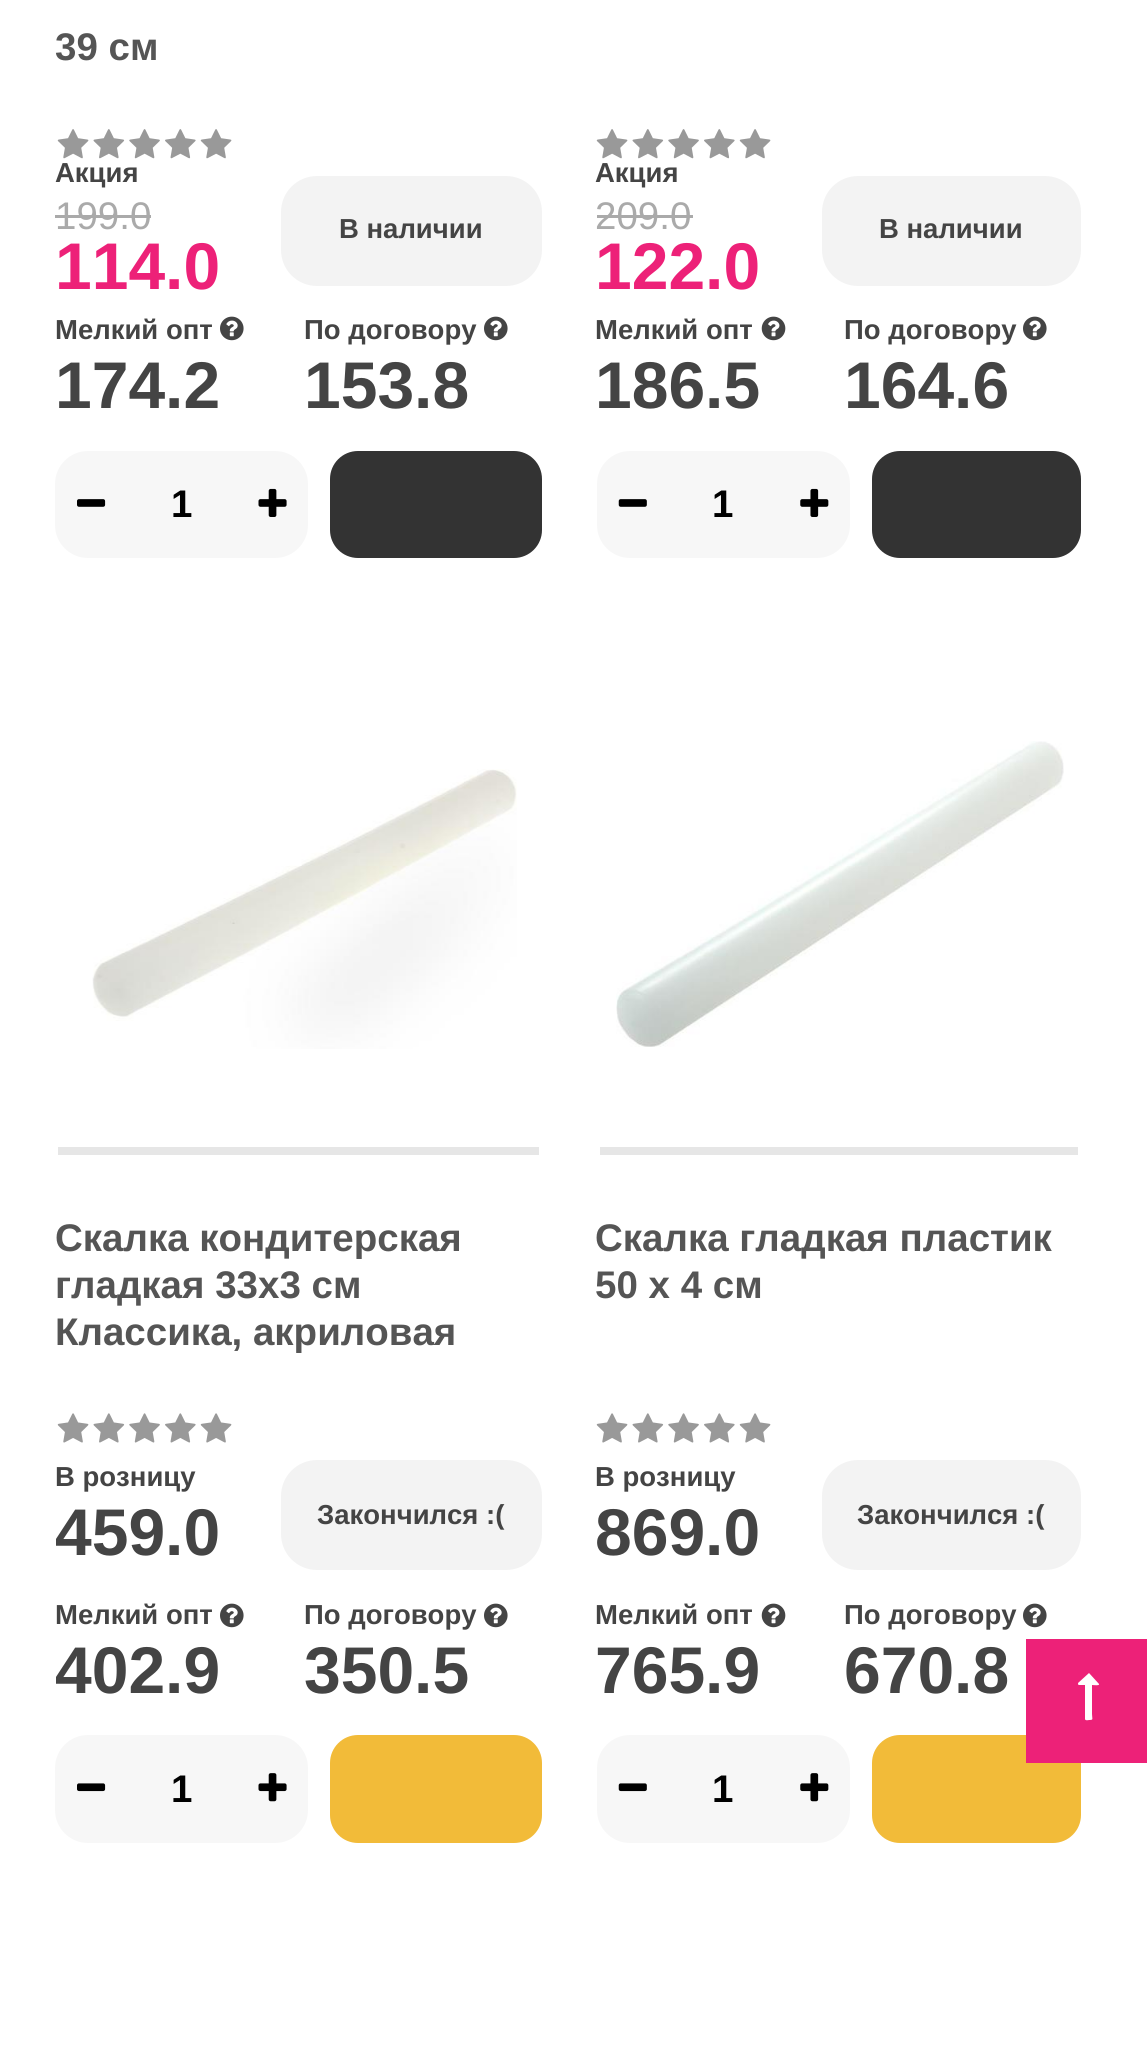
#include <cairo/cairo.h>
#include <math.h>
#include <stddef.h>

static cairo_t *cr;

static void use_color(int r, int g, int b) {
  cairo_set_source_rgb(cr, r / 255.0, g / 255.0, b / 255.0);
}

static void text(double x, double y, const char *s, const char *family, double size, int italic, int bold, int r, int g, int b) {
  cairo_select_font_face(cr, family, italic ? CAIRO_FONT_SLANT_ITALIC : CAIRO_FONT_SLANT_NORMAL,
    bold ? CAIRO_FONT_WEIGHT_BOLD : CAIRO_FONT_WEIGHT_NORMAL);
  cairo_set_font_size(cr, size);
  use_color(r, g, b);
  cairo_move_to(cr, x, y);
  cairo_show_text(cr, s);
}

static void box(double x, double y, double w, double h, int r, int g, int b) {
  use_color(r, g, b);
  cairo_rectangle(cr, x, y, w, h);
  cairo_fill(cr);
}

static void round_rect(double x, double y, double w, double h, double r) {
  cairo_new_sub_path(cr);
  cairo_arc(cr, x + w - r, y + h - r, r, 0, M_PI / 2);
  cairo_arc(cr, x + r, y + h - r, r, M_PI / 2, M_PI);
  cairo_arc(cr, x + r, y + r, r, M_PI, 1.5 * M_PI);
  cairo_arc(cr, x + w - r, y + r, r, 1.5 * M_PI, 2 * M_PI);
  cairo_close_path(cr);
}

static void picture(const char *path, double x, double y, double w, double h) {
  cairo_surface_t *image = cairo_image_surface_create_from_png(path);
  cairo_save(cr);
  cairo_set_source_surface(cr, image, x, y);
  cairo_rectangle(cr, x, y, w, h);
  cairo_fill(cr);
  cairo_restore(cr);
  cairo_surface_destroy(image);
}

static void draw(void) {
  use_color(255, 255, 255);
  cairo_paint(cr);
  picture("img_01.png", 57, 129, 32, 30);
  picture("img_02.png", 93, 129, 32, 30);
  picture("img_03.png", 129, 129, 31, 30);
  picture("img_04.png", 165, 129, 31, 30);
  picture("img_01.png", 200, 129, 32, 30);
  box(55, 215, 96, 3, 170, 170, 170);
  use_color(243, 243, 243);
  round_rect(281, 176, 261, 110, 36);
  cairo_fill(cr);
  picture("img_05.png", 220, 316, 24, 25);
  picture("img_05.png", 484, 316, 24, 25);
  use_color(247, 247, 247);
  round_rect(55, 451, 253, 107, 33);
  cairo_fill(cr);
  picture("img_06.png", 77, 499, 29, 8);
  picture("img_07.png", 258, 488, 29, 29);
  use_color(51, 51, 51);
  round_rect(330, 451, 212, 107, 28);
  cairo_fill(cr);
  picture("img_01.png", 596, 129, 32, 30);
  picture("img_02.png", 632, 129, 32, 30);
  picture("img_03.png", 668, 129, 31, 30);
  picture("img_04.png", 704, 129, 31, 30);
  picture("img_01.png", 739, 129, 32, 30);
  box(597, 215, 96, 3, 170, 170, 170);
  use_color(243, 243, 243);
  round_rect(822, 176, 259, 110, 36);
  cairo_fill(cr);
  picture("img_08.png", 761, 316, 25, 25);
  picture("img_05.png", 1023, 316, 24, 25);
  use_color(247, 247, 247);
  round_rect(597, 451, 253, 107, 33);
  cairo_fill(cr);
  picture("img_09.png", 618, 499, 29, 8);
  picture("img_10.png", 800, 488, 29, 29);
  use_color(51, 51, 51);
  round_rect(872, 451, 209, 107, 28);
  cairo_fill(cr);
  picture("img_11.png", 92, 769, 425, 280);
  box(58, 1147, 481, 8, 230, 230, 230);
  picture("img_12.png", 57, 1413, 32, 30);
  picture("img_13.png", 93, 1413, 32, 30);
  picture("img_14.png", 129, 1413, 31, 30);
  picture("img_15.png", 165, 1413, 31, 30);
  picture("img_12.png", 200, 1413, 32, 30);
  use_color(243, 243, 243);
  round_rect(281, 1460, 261, 110, 36);
  cairo_fill(cr);
  picture("img_05.png", 220, 1603, 24, 25);
  picture("img_05.png", 484, 1603, 24, 25);
  use_color(247, 247, 247);
  round_rect(55, 1735, 253, 108, 33);
  cairo_fill(cr);
  picture("img_16.png", 77, 1783, 29, 9);
  picture("img_17.png", 258, 1773, 29, 29);
  use_color(242, 187, 57);
  round_rect(330, 1735, 212, 108, 28);
  cairo_fill(cr);
  picture("img_18.png", 616, 741, 448, 306);
  box(600, 1147, 478, 8, 230, 230, 230);
  picture("img_12.png", 596, 1413, 32, 30);
  picture("img_13.png", 632, 1413, 32, 30);
  picture("img_14.png", 668, 1413, 31, 30);
  picture("img_15.png", 704, 1413, 31, 30);
  picture("img_12.png", 739, 1413, 32, 30);
  use_color(243, 243, 243);
  round_rect(822, 1460, 259, 110, 36);
  cairo_fill(cr);
  picture("img_08.png", 761, 1603, 25, 25);
  picture("img_05.png", 1023, 1603, 24, 25);
  use_color(247, 247, 247);
  round_rect(597, 1735, 253, 108, 33);
  cairo_fill(cr);
  picture("img_19.png", 618, 1783, 29, 9);
  picture("img_20.png", 800, 1773, 29, 29);
  use_color(242, 187, 57);
  round_rect(872, 1735, 209, 108, 28);
  cairo_fill(cr);
  box(1026, 1639, 121, 124, 237, 33, 120);
  use_color(255, 255, 255);
  cairo_new_path(cr);
  cairo_move_to(cr, 1079, 1685);
  cairo_curve_to(cr, 1078, 1685, 1078, 1684, 1078, 1683);
  cairo_line_to(cr, 1089, 1673);
  cairo_line_to(cr, 1099, 1684);
  cairo_curve_to(cr, 1100, 1686, 1093, 1685, 1092, 1685);
  cairo_line_to(cr, 1092, 1714);
  cairo_curve_to(cr, 1092, 1719, 1094, 1720, 1089, 1720);
  cairo_curve_to(cr, 1089, 1720, 1085, 1721, 1085, 1719);
  cairo_line_to(cr, 1085, 1685);
  cairo_close_path(cr);
  cairo_fill(cr);
  text(55, 60, "39 см", "Liberation Sans", 38.5, 0, 1, 85, 85, 85);
  text(55, 182, "Акция", "Liberation Sans", 27.5, 0, 1, 68, 68, 68);
  text(55, 229, "199.0", "Liberation Sans", 38.5, 0, 0, 170, 170, 170);
  text(55, 289, "114.0", "Liberation Sans", 66, 0, 1, 237, 33, 120);
  text(339, 238, "В наличии", "Liberation Sans", 27.5, 0, 1, 68, 68, 68);
  text(55, 339, "Мелкий опт", "Liberation Sans", 27.5, 0, 1, 68, 68, 68);
  text(55, 408, "174.2", "Liberation Sans", 66, 0, 1, 68, 68, 68);
  text(304, 339, "По договору", "Liberation Sans", 27.5, 0, 1, 68, 68, 68);
  text(304, 408, "153.8", "Liberation Sans", 66, 0, 1, 68, 68, 68);
  text(171, 517, "1", "Liberation Sans", 38.5, 0, 1, 0, 0, 0);
  text(595, 182, "Акция", "Liberation Sans", 27.5, 0, 1, 68, 68, 68);
  text(595, 229, "209.0", "Liberation Sans", 38.5, 0, 0, 170, 170, 170);
  text(595, 289, "122.0", "Liberation Sans", 66, 0, 1, 237, 33, 120);
  text(879, 238, "В наличии", "Liberation Sans", 27.5, 0, 1, 68, 68, 68);
  text(595, 339, "Мелкий опт", "Liberation Sans", 27.5, 0, 1, 68, 68, 68);
  text(595, 408, "186.5", "Liberation Sans", 66, 0, 1, 68, 68, 68);
  text(844, 339, "По договору", "Liberation Sans", 27.5, 0, 1, 68, 68, 68);
  text(844, 408, "164.6", "Liberation Sans", 66, 0, 1, 68, 68, 68);
  text(712, 517, "1", "Liberation Sans", 38.5, 0, 1, 0, 0, 0);
  text(55, 1251, "Скалка кондитерская", "Liberation Sans", 38.5, 0, 1, 85, 85, 85);
  text(55, 1298, "гладкая 33х3 см", "Liberation Sans", 38.5, 0, 1, 85, 85, 85);
  text(55, 1345, "Классика, акриловая", "Liberation Sans", 38.5, 0, 1, 85, 85, 85);
  text(55, 1486, "В розницу", "Liberation Sans", 27.5, 0, 1, 68, 68, 68);
  text(55, 1555, "459.0", "Liberation Sans", 66, 0, 1, 68, 68, 68);
  text(317, 1524, "Закончился :(", "Liberation Sans", 27.5, 0, 1, 68, 68, 68);
  text(55, 1624, "Мелкий опт", "Liberation Sans", 27.5, 0, 1, 68, 68, 68);
  text(55, 1693, "402.9", "Liberation Sans", 66, 0, 1, 68, 68, 68);
  text(304, 1624, "По договору", "Liberation Sans", 27.5, 0, 1, 68, 68, 68);
  text(304, 1693, "350.5", "Liberation Sans", 66, 0, 1, 68, 68, 68);
  text(171, 1802, "1", "Liberation Sans", 38.5, 0, 1, 0, 0, 0);
  text(595, 1251, "Скалка гладкая пластик", "Liberation Sans", 38.5, 0, 1, 85, 85, 85);
  text(595, 1298, "50 х 4 см", "Liberation Sans", 38.5, 0, 1, 85, 85, 85);
  text(595, 1486, "В розницу", "Liberation Sans", 27.5, 0, 1, 68, 68, 68);
  text(595, 1555, "869.0", "Liberation Sans", 66, 0, 1, 68, 68, 68);
  text(857, 1524, "Закончился :(", "Liberation Sans", 27.5, 0, 1, 68, 68, 68);
  text(595, 1624, "Мелкий опт", "Liberation Sans", 27.5, 0, 1, 68, 68, 68);
  text(595, 1693, "765.9", "Liberation Sans", 66, 0, 1, 68, 68, 68);
  text(844, 1624, "По договору", "Liberation Sans", 27.5, 0, 1, 68, 68, 68);
  text(844, 1693, "670.8", "Liberation Sans", 66, 0, 1, 68, 68, 68);
  text(712, 1802, "1", "Liberation Sans", 38.5, 0, 1, 0, 0, 0);
}

int main(void) {
  cairo_surface_t *surface = cairo_image_surface_create(CAIRO_FORMAT_RGB24, 1147, 2072);
  cr = cairo_create(surface);
  cairo_font_options_t *options = cairo_font_options_create();
  cairo_font_options_set_hint_metrics(options, CAIRO_HINT_METRICS_OFF);
  cairo_font_options_set_hint_style(options, CAIRO_HINT_STYLE_NONE);
  cairo_set_font_options(cr, options);
  cairo_set_miter_limit(cr, 4);
  draw();
  cairo_surface_write_to_png(surface, "out.png");
  cairo_font_options_destroy(options);
  cairo_destroy(cr);
  cairo_surface_destroy(surface);
  return 0;
}
